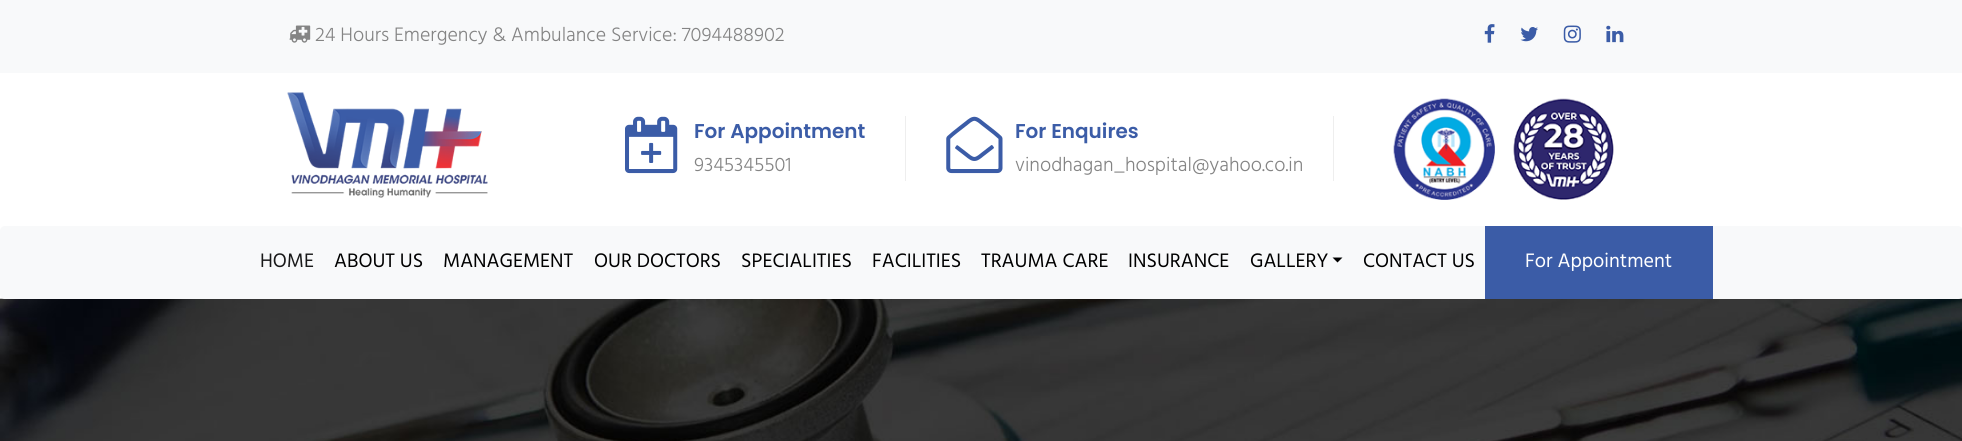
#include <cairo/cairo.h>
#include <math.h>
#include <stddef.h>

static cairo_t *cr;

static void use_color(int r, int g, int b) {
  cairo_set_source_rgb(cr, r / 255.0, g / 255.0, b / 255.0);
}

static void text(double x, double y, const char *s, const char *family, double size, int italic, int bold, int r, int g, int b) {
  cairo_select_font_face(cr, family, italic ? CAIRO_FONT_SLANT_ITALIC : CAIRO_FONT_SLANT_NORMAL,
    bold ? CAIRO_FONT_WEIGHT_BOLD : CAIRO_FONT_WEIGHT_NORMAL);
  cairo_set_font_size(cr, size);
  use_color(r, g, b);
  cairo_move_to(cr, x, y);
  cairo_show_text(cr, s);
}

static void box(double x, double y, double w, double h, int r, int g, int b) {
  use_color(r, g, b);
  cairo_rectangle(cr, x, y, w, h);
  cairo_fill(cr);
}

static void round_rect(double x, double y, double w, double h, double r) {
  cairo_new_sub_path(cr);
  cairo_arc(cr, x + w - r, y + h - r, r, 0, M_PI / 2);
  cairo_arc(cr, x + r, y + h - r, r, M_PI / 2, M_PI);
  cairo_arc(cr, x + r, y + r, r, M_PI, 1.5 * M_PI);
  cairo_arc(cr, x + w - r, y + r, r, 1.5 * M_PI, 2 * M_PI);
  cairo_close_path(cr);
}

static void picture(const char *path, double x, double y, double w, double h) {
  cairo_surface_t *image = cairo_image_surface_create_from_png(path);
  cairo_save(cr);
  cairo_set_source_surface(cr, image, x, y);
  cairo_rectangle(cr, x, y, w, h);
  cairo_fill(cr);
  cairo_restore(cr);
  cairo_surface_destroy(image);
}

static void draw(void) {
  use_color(255, 255, 255);
  cairo_paint(cr);
  box(0, 0, 1962, 73, 248, 249, 250);
  picture("img_01.png", 289, 25, 22, 18);
  picture("img_02.png", 1484, 24, 11, 19);
  picture("img_03.png", 1520, 27, 18, 15);
  picture("img_04.png", 1563, 25, 18, 18);
  picture("img_05.png", 1606, 25, 18, 18);
  picture("img_06.png", 287, 92, 201, 106);
  box(905, 116, 1, 65, 238, 238, 238);
  picture("img_07.png", 625, 116, 53, 58);
  box(1333, 116, 1, 65, 238, 238, 238);
  picture("img_08.png", 946, 116, 57, 58);
  picture("img_09.png", 1393, 98, 102, 102);
  picture("img_10.png", 1513, 98, 101, 102);
  picture("img_11.png", 0, 298, 1962, 143);
  use_color(248, 249, 250);
  round_rect(0, 226, 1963, 73, 5);
  cairo_fill(cr);
  use_color(0, 0, 0);
  cairo_new_path(cr);
  cairo_move_to(cr, 1332.5, 257.5);
  cairo_line_to(cr, 1342.5, 257.5);
  cairo_line_to(cr, 1337.5, 262.5);
  cairo_close_path(cr);
  cairo_fill(cr);
  box(1485, 226, 228, 73, 59, 92, 167);
  text(315, 41, "24 Hours Emergency & Ambulance Service: 7094488902", "Hind Light", 20, 0, 0, 132, 132, 132);
  text(694, 138, "For Appointment", "Poppins SemiBold", 20, 0, 0, 59, 92, 167);
  text(694, 171, "9345345501", "Hind Light", 20, 0, 0, 132, 132, 132);
  text(1015, 138, "For Enquires", "Poppins SemiBold", 20, 0, 0, 59, 92, 167);
  text(1015, 171, "vinodhagan_hospital@yahoo.co.in", "Hind Light", 20, 0, 0, 132, 132, 132);
  text(260, 267, "HOME", "Hind", 20, 0, 0, 25, 25, 25);
  text(334, 267, "ABOUT US", "Hind", 20, 0, 0, 0, 0, 0);
  text(443, 267, "MANAGEMENT", "Hind", 20, 0, 0, 0, 0, 0);
  text(594, 267, "OUR DOCTORS", "Hind", 20, 0, 0, 0, 0, 0);
  text(741, 267, "SPECIALITIES", "Hind", 20, 0, 0, 0, 0, 0);
  text(872, 267, "FACILITIES", "Hind", 20, 0, 0, 0, 0, 0);
  text(981, 267, "TRAUMA CARE", "Hind", 20, 0, 0, 0, 0, 0);
  text(1128, 267, "INSURANCE", "Hind", 20, 0, 0, 0, 0, 0);
  text(1250, 267, "GALLERY", "Hind", 20, 0, 0, 0, 0, 0);
  text(1363, 267, "CONTACT US", "Hind", 20, 0, 0, 0, 0, 0);
  text(1525, 267, "For Appointment", "Hind", 20, 0, 0, 255, 255, 255);
}

int main(void) {
  cairo_surface_t *surface = cairo_image_surface_create(CAIRO_FORMAT_RGB24, 1962, 441);
  cr = cairo_create(surface);
  cairo_font_options_t *options = cairo_font_options_create();
  cairo_font_options_set_hint_metrics(options, CAIRO_HINT_METRICS_OFF);
  cairo_font_options_set_hint_style(options, CAIRO_HINT_STYLE_NONE);
  cairo_set_font_options(cr, options);
  cairo_set_miter_limit(cr, 4);
  draw();
  cairo_surface_write_to_png(surface, "out.png");
  cairo_font_options_destroy(options);
  cairo_destroy(cr);
  cairo_surface_destroy(surface);
  return 0;
}
